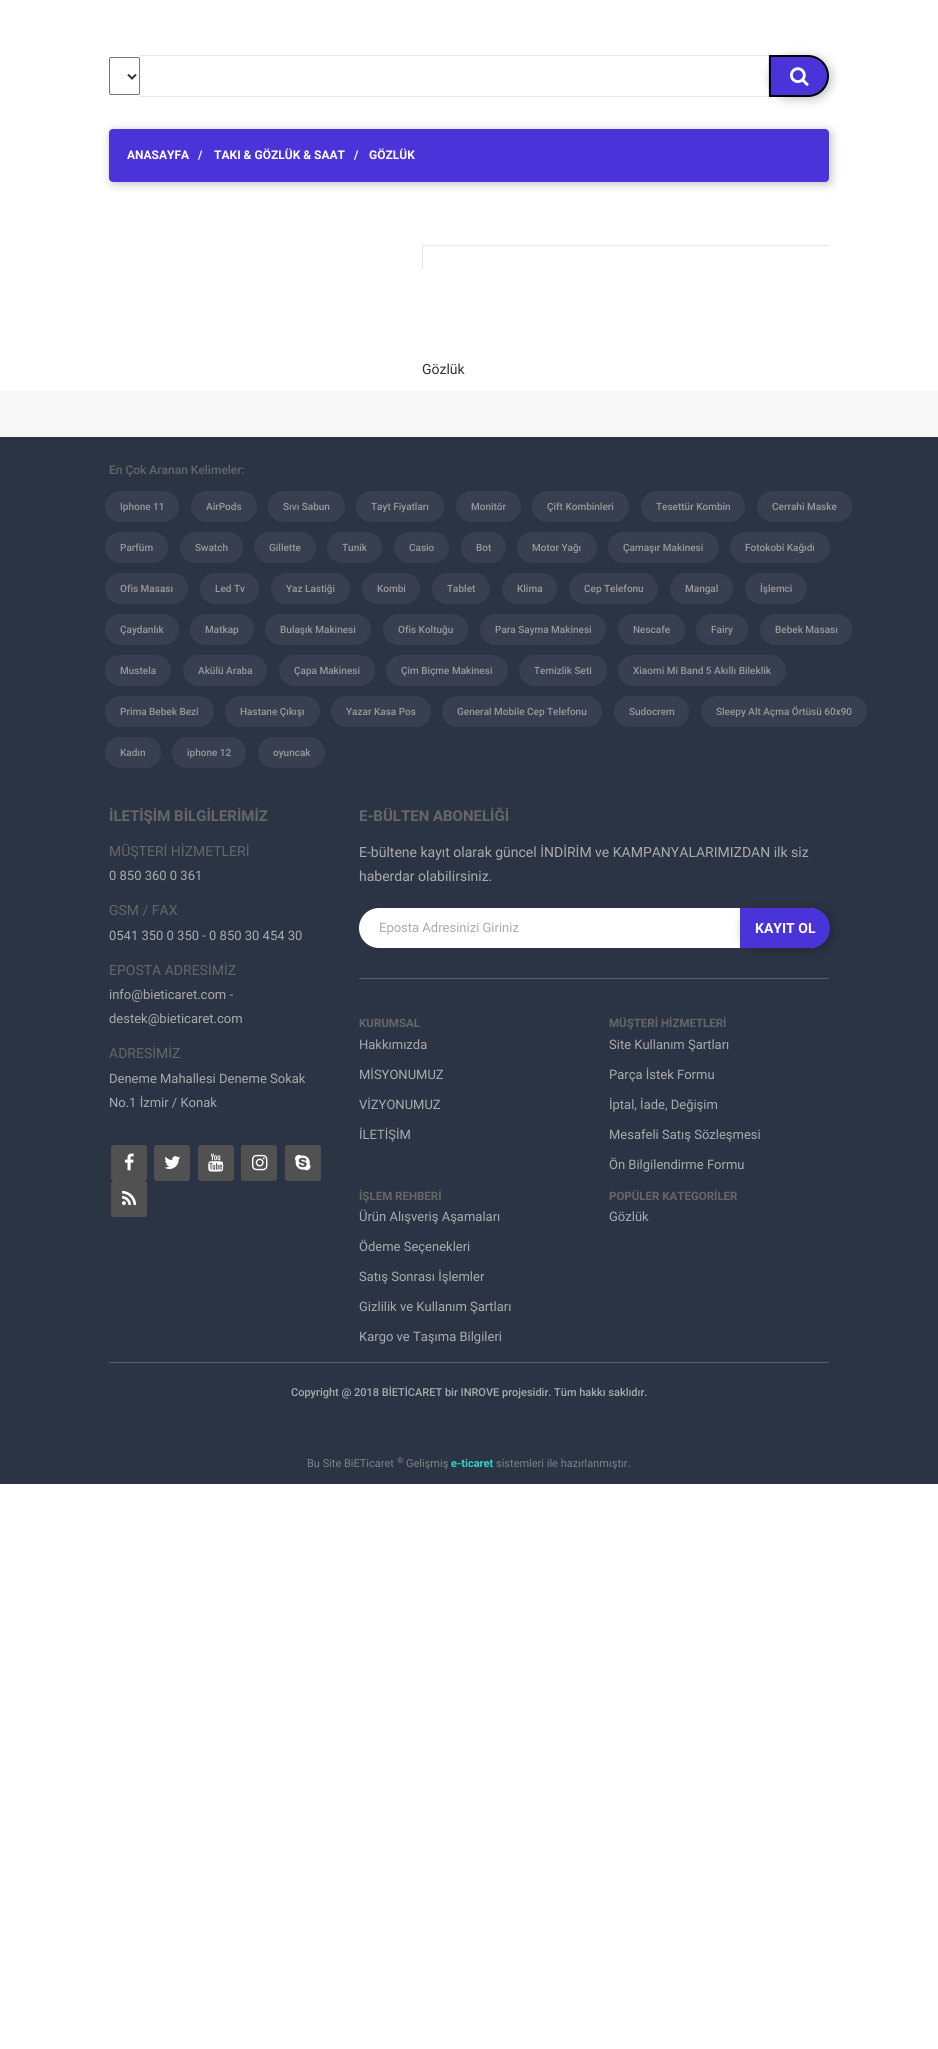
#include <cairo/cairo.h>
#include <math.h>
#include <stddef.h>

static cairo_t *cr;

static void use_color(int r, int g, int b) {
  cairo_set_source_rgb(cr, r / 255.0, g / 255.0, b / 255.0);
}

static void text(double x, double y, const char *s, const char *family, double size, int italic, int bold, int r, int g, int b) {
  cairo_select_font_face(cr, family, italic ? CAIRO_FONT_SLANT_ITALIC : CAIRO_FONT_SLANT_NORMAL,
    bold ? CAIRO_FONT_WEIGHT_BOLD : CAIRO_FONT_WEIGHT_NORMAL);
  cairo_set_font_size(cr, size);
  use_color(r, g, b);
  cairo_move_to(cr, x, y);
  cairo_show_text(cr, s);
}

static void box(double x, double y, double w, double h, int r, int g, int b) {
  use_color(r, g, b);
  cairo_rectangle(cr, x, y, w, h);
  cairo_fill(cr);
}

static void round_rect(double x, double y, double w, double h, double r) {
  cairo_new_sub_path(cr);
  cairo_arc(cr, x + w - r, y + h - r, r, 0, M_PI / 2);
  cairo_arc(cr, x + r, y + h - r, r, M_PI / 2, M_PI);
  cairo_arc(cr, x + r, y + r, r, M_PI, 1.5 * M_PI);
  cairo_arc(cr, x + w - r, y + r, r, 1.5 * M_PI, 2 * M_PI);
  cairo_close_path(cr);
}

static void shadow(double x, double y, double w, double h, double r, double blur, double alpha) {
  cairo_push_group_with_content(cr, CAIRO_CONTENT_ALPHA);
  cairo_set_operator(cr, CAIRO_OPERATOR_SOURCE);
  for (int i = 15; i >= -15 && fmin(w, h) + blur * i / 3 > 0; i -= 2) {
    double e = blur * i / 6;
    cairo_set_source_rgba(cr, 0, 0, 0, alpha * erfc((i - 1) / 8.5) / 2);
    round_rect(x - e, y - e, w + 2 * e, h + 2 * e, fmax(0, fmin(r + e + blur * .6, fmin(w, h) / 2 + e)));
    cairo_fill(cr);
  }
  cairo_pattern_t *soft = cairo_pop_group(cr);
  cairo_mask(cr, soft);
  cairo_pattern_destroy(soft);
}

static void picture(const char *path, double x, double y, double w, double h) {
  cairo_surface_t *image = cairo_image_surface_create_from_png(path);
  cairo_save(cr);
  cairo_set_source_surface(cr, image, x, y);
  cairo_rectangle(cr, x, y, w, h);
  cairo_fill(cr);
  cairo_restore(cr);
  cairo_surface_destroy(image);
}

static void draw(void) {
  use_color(255, 255, 255);
  cairo_paint(cr);
  round_rect(109.5, 57.5, 30, 37, 1.5);
  use_color(118, 118, 118);
  cairo_set_line_width(cr, 1);
  cairo_stroke(cr);
  cairo_new_path(cr);
  cairo_move_to(cr, 128, 74.5);
  cairo_line_to(cr, 132, 78.5);
  cairo_line_to(cr, 136, 74.5);
  use_color(51, 51, 51);
  cairo_set_line_width(cr, 2);
  cairo_stroke(cr);
  box(140, 55, 629, 1, 230, 230, 230);
  box(768, 55, 1, 42, 230, 230, 230);
  box(140, 96, 629, 1, 230, 230, 230);
  use_color(0, 0, 0);
  shadow(771, 57, 60, 42, 21, 5, 0.25);
  use_color(74, 51, 217);
  cairo_new_path(cr);
  cairo_move_to(cr, 770, 56);
  cairo_line_to(cr, 808, 56);
  cairo_curve_to(cr, 819, 56, 828, 65, 828, 76);
  cairo_curve_to(cr, 828, 87, 819, 96, 808, 96);
  cairo_line_to(cr, 770, 96);
  cairo_close_path(cr);
  cairo_fill_preserve(cr);
  use_color(0, 0, 0);
  cairo_stroke(cr);
  picture("img_01.png", 790, 67, 19, 19);
  use_color(0, 0, 0);
  shadow(111, 131, 720, 53, 4, 5, 0.25);
  use_color(74, 51, 217);
  round_rect(109, 129, 720, 53, 4);
  cairo_fill(cr);
  box(422, 245, 408, 1, 230, 230, 230);
  box(422, 245, 1, 25, 230, 230, 230);
  box(0, 391, 938, 46, 248, 248, 248);
  box(0, 437, 938, 1047, 43, 52, 69);
  use_color(55, 63, 80);
  round_rect(105, 491, 74, 31, 15.5);
  cairo_fill(cr);
  round_rect(191, 491, 66, 31, 15.5);
  cairo_fill(cr);
  round_rect(268, 491, 77, 31, 15.5);
  cairo_fill(cr);
  round_rect(356, 491, 88, 31, 15.5);
  cairo_fill(cr);
  round_rect(456, 491, 65, 31, 15.5);
  cairo_fill(cr);
  round_rect(532, 491, 97, 31, 15.5);
  cairo_fill(cr);
  round_rect(641, 491, 104, 31, 15.5);
  cairo_fill(cr);
  round_rect(757, 491, 95, 31, 15.5);
  cairo_fill(cr);
  round_rect(105, 532, 63, 31, 15.5);
  cairo_fill(cr);
  round_rect(180, 532, 63, 31, 15.5);
  cairo_fill(cr);
  round_rect(254, 532, 62, 31, 15.5);
  cairo_fill(cr);
  round_rect(327, 532, 55, 31, 15.5);
  cairo_fill(cr);
  round_rect(394, 532, 55, 31, 15.5);
  cairo_fill(cr);
  round_rect(461, 532, 45, 31, 15.5);
  cairo_fill(cr);
  round_rect(517, 532, 80, 31, 15.5);
  cairo_fill(cr);
  round_rect(608, 532, 111, 31, 15.5);
  cairo_fill(cr);
  round_rect(730, 532, 100, 31, 15.5);
  cairo_fill(cr);
  round_rect(105, 573, 83, 31, 15.5);
  cairo_fill(cr);
  round_rect(200, 573, 59, 31, 15.5);
  cairo_fill(cr);
  round_rect(271, 573, 79, 31, 15.5);
  cairo_fill(cr);
  round_rect(362, 573, 58, 31, 15.5);
  cairo_fill(cr);
  round_rect(432, 573, 58, 31, 15.5);
  cairo_fill(cr);
  round_rect(502, 573, 55, 31, 15.5);
  cairo_fill(cr);
  round_rect(569, 573, 89, 31, 15.5);
  cairo_fill(cr);
  round_rect(670, 573, 63, 31, 15.5);
  cairo_fill(cr);
  round_rect(745, 573, 62, 31, 15.5);
  cairo_fill(cr);
  round_rect(105, 614, 74, 31, 15.5);
  cairo_fill(cr);
  round_rect(190, 614, 64, 31, 15.5);
  cairo_fill(cr);
  round_rect(265, 614, 106, 31, 15.5);
  cairo_fill(cr);
  round_rect(383, 614, 85, 31, 15.5);
  cairo_fill(cr);
  round_rect(480, 614, 126, 31, 15.5);
  cairo_fill(cr);
  round_rect(618, 614, 67, 31, 15.5);
  cairo_fill(cr);
  round_rect(696, 614, 52, 31, 15.5);
  cairo_fill(cr);
  round_rect(760, 614, 92, 31, 15.5);
  cairo_fill(cr);
  round_rect(105, 655, 66, 31, 15.5);
  cairo_fill(cr);
  round_rect(183, 655, 84, 31, 15.5);
  cairo_fill(cr);
  round_rect(279, 655, 96, 31, 15.5);
  cairo_fill(cr);
  round_rect(386, 655, 122, 31, 15.5);
  cairo_fill(cr);
  round_rect(519, 655, 88, 31, 15.5);
  cairo_fill(cr);
  round_rect(618, 655, 168, 31, 15.5);
  cairo_fill(cr);
  round_rect(105, 696, 109, 31, 15.5);
  cairo_fill(cr);
  round_rect(225, 696, 95, 31, 15.5);
  cairo_fill(cr);
  round_rect(331, 696, 100, 31, 15.5);
  cairo_fill(cr);
  round_rect(442, 696, 160, 31, 15.5);
  cairo_fill(cr);
  round_rect(614, 696, 75, 31, 15.5);
  cairo_fill(cr);
  round_rect(701, 696, 166, 31, 15.5);
  cairo_fill(cr);
  round_rect(105, 737, 56, 31, 15.5);
  cairo_fill(cr);
  round_rect(172, 737, 74, 31, 15.5);
  cairo_fill(cr);
  round_rect(258, 737, 67, 31, 15.5);
  cairo_fill(cr);
  use_color(81, 81, 81);
  round_rect(111, 1145, 36, 36, 3);
  cairo_fill(cr);
  picture("img_02.png", 124, 1153, 10, 18);
  round_rect(154, 1145, 36, 36, 3);
  cairo_fill(cr);
  picture("img_03.png", 164, 1156, 17, 13);
  round_rect(198, 1145, 36, 36, 3);
  cairo_fill(cr);
  picture("img_04.png", 208, 1153, 16, 19);
  round_rect(241, 1145, 36, 36, 3);
  cairo_fill(cr);
  picture("img_05.png", 252, 1154, 16, 17);
  round_rect(285, 1145, 36, 36, 3);
  cairo_fill(cr);
  picture("img_06.png", 295, 1154, 16, 17);
  round_rect(111, 1181, 36, 36, 3);
  cairo_fill(cr);
  picture("img_07.png", 122, 1190, 15, 15);
  box(359, 978, 470, 1, 85, 93, 106);
  use_color(255, 255, 255);
  round_rect(359, 908, 470, 40, 20);
  cairo_fill(cr);
  use_color(0, 0, 0);
  shadow(742, 910, 90, 40, 20, 5, 0.25);
  use_color(74, 51, 217);
  cairo_new_path(cr);
  cairo_move_to(cr, 740, 908);
  cairo_line_to(cr, 810, 908);
  cairo_curve_to(cr, 821, 908, 830, 917, 830, 928);
  cairo_curve_to(cr, 830, 939, 821, 948, 810, 948);
  cairo_line_to(cr, 740, 948);
  cairo_close_path(cr);
  cairo_fill(cr);
  box(109, 1362, 720, 1, 85, 93, 106);
  text(127, 159, "ANASAYFA", "Roboto", 12, 0, 1, 255, 255, 255);
  text(198, 159, "/", "Roboto", 12, 0, 1, 255, 255, 255);
  text(214, 159, "TAKI & GÖZLÜK & SAAT", "Roboto", 12, 0, 1, 255, 255, 255);
  text(354, 159, "/", "Roboto", 12, 0, 1, 255, 255, 255);
  text(369, 159, "GÖZLÜK", "Roboto", 12, 0, 1, 255, 255, 255);
  text(422, 374, "Gözlük", "Roboto", 14, 0, 0, 51, 51, 51);
  text(109, 474, "En Çok Aranan Kelimeler:", "Roboto Medium", 12, 0, 0, 102, 102, 102);
  text(120, 510, "Iphone 11", "Roboto Medium", 10, 0, 0, 153, 153, 153);
  text(206, 510, "AirPods", "Roboto Medium", 10, 0, 0, 153, 153, 153);
  text(283, 510, "Sıvı Sabun", "Roboto Medium", 10, 0, 0, 153, 153, 153);
  text(371, 510, "Tayt Fiyatları", "Roboto Medium", 10, 0, 0, 153, 153, 153);
  text(471, 510, "Monitör", "Roboto Medium", 10, 0, 0, 153, 153, 153);
  text(547, 510, "Çift Kombinleri", "Roboto Medium", 10, 0, 0, 153, 153, 153);
  text(656, 510, "Tesettür Kombin", "Roboto Medium", 10, 0, 0, 153, 153, 153);
  text(772, 510, "Cerrahi Maske", "Roboto Medium", 10, 0, 0, 153, 153, 153);
  text(120, 551, "Parfüm", "Roboto Medium", 10, 0, 0, 153, 153, 153);
  text(195, 551, "Swatch", "Roboto Medium", 10, 0, 0, 153, 153, 153);
  text(269, 551, "Gillette", "Roboto Medium", 10, 0, 0, 153, 153, 153);
  text(342, 551, "Tunik", "Roboto Medium", 10, 0, 0, 153, 153, 153);
  text(409, 551, "Casio", "Roboto Medium", 10, 0, 0, 153, 153, 153);
  text(476, 551, "Bot", "Roboto Medium", 10, 0, 0, 153, 153, 153);
  text(532, 551, "Motor Yağı", "Roboto Medium", 10, 0, 0, 153, 153, 153);
  text(623, 551, "Çamaşır Makinesi", "Roboto Medium", 10, 0, 0, 153, 153, 153);
  text(745, 551, "Fotokobi Kağıdı", "Roboto Medium", 10, 0, 0, 153, 153, 153);
  text(120, 592, "Ofis Masası", "Roboto Medium", 10, 0, 0, 153, 153, 153);
  text(215, 592, "Led Tv", "Roboto Medium", 10, 0, 0, 153, 153, 153);
  text(286, 592, "Yaz Lastiği", "Roboto Medium", 10, 0, 0, 153, 153, 153);
  text(377, 592, "Kombi", "Roboto Medium", 10, 0, 0, 153, 153, 153);
  text(447, 592, "Tablet", "Roboto Medium", 10, 0, 0, 153, 153, 153);
  text(517, 592, "Klima", "Roboto Medium", 10, 0, 0, 153, 153, 153);
  text(584, 592, "Cep Telefonu", "Roboto Medium", 10, 0, 0, 153, 153, 153);
  text(685, 592, "Mangal", "Roboto Medium", 10, 0, 0, 153, 153, 153);
  text(760, 592, "İşlemci", "Roboto Medium", 10, 0, 0, 153, 153, 153);
  text(120, 633, "Çaydanlık", "Roboto Medium", 10, 0, 0, 153, 153, 153);
  text(205, 633, "Matkap", "Roboto Medium", 10, 0, 0, 153, 153, 153);
  text(280, 633, "Bulaşık Makinesi", "Roboto Medium", 10, 0, 0, 153, 153, 153);
  text(398, 633, "Ofis Koltuğu", "Roboto Medium", 10, 0, 0, 153, 153, 153);
  text(495, 633, "Para Sayma Makinesi", "Roboto Medium", 10, 0, 0, 153, 153, 153);
  text(633, 633, "Nescafe", "Roboto Medium", 10, 0, 0, 153, 153, 153);
  text(711, 633, "Fairy", "Roboto Medium", 10, 0, 0, 153, 153, 153);
  text(775, 633, "Bebek Masası", "Roboto Medium", 10, 0, 0, 153, 153, 153);
  text(120, 674, "Mustela", "Roboto Medium", 10, 0, 0, 153, 153, 153);
  text(198, 674, "Akülü Araba", "Roboto Medium", 10, 0, 0, 153, 153, 153);
  text(294, 674, "Çapa Makinesi", "Roboto Medium", 10, 0, 0, 153, 153, 153);
  text(401, 674, "Çim Biçme Makinesi", "Roboto Medium", 10, 0, 0, 153, 153, 153);
  text(534, 674, "Temizlik Seti", "Roboto Medium", 10, 0, 0, 153, 153, 153);
  text(633, 674, "Xiaomi Mi Band 5 Akıllı Bileklik", "Roboto Medium", 10, 0, 0, 153, 153, 153);
  text(120, 715, "Prima Bebek Bezi", "Roboto Medium", 10, 0, 0, 153, 153, 153);
  text(240, 715, "Hastane Çıkışı", "Roboto Medium", 10, 0, 0, 153, 153, 153);
  text(346, 715, "Yazar Kasa Pos", "Roboto Medium", 10, 0, 0, 153, 153, 153);
  text(457, 715, "General Mobile Cep Telefonu", "Roboto Medium", 10, 0, 0, 153, 153, 153);
  text(629, 715, "Sudocrem", "Roboto Medium", 10, 0, 0, 153, 153, 153);
  text(716, 715, "Sleepy Alt Açma Örtüsü 60x90", "Roboto Medium", 10, 0, 0, 153, 153, 153);
  text(120, 756, "Kadın", "Roboto Medium", 10, 0, 0, 153, 153, 153);
  text(187, 756, "iphone 12", "Roboto Medium", 10, 0, 0, 153, 153, 153);
  text(273, 756, "oyuncak", "Roboto Medium", 10, 0, 0, 153, 153, 153);
  text(109, 821, "İLETİŞİM BİLGİLERİMİZ", "Roboto", 15, 0, 1, 102, 102, 102);
  text(109, 856, "MÜŞTERİ HİZMETLERİ", "Roboto", 14, 0, 0, 102, 102, 102);
  text(109, 880, "0 850 360 0 361", "Roboto", 13, 0, 0, 170, 170, 170);
  text(109, 915, "GSM / FAX", "Roboto", 14, 0, 0, 102, 102, 102);
  text(109, 940, "0541 350 0 350 - 0 850 30 454 30", "Roboto", 13, 0, 0, 170, 170, 170);
  text(109, 975, "EPOSTA ADRESİMİZ", "Roboto", 14, 0, 0, 102, 102, 102);
  text(109, 999, "info@bieticaret.com -", "Roboto", 13, 0, 0, 170, 170, 170);
  text(109, 1023, "destek@bieticaret.com", "Roboto", 13, 0, 0, 170, 170, 170);
  text(109, 1058, "ADRESİMİZ", "Roboto", 14, 0, 0, 102, 102, 102);
  text(109, 1083, "Deneme Mahallesi Deneme Sokak", "Roboto", 13, 0, 0, 170, 170, 170);
  text(109, 1107, "No.1 İzmir / Konak", "Roboto", 13, 0, 0, 170, 170, 170);
  text(359, 821, "E-BÜLTEN ABONELİĞİ", "Roboto", 15, 0, 1, 102, 102, 102);
  text(359, 857, "E-bültene kayıt olarak güncel İNDİRİM ve KAMPANYALARIMIZDAN ilk siz", "Roboto", 14, 0, 0, 170, 170, 170);
  text(359, 881, "haberdar olabilirsiniz.", "Roboto", 14, 0, 0, 170, 170, 170);
  text(379, 932, "Eposta Adresinizi Giriniz", "Roboto", 13, 0, 0, 170, 170, 170);
  text(755, 933, "KAYIT OL", "Roboto", 14, 0, 1, 255, 255, 255);
  text(359, 1027, "KURUMSAL", "Roboto", 11.5, 0, 1, 102, 102, 102);
  text(359, 1049, "Hakkımızda", "Roboto", 13, 0, 0, 170, 170, 170);
  text(359, 1079, "MİSYONUMUZ", "Roboto", 13, 0, 0, 170, 170, 170);
  text(359, 1109, "VİZYONUMUZ", "Roboto", 13, 0, 0, 170, 170, 170);
  text(359, 1139, "İLETİŞİM", "Roboto", 13, 0, 0, 170, 170, 170);
  text(609, 1027, "MÜŞTERİ HİZMETLERİ", "Roboto", 11.5, 0, 1, 102, 102, 102);
  text(609, 1049, "Site Kullanım Şartları", "Roboto", 13, 0, 0, 170, 170, 170);
  text(609, 1079, "Parça İstek Formu", "Roboto", 13, 0, 0, 170, 170, 170);
  text(609, 1109, "İptal, İade, Değişim", "Roboto", 13, 0, 0, 170, 170, 170);
  text(609, 1139, "Mesafeli Satış Sözleşmesi", "Roboto", 13, 0, 0, 170, 170, 170);
  text(609, 1169, "Ön Bilgilendirme Formu", "Roboto", 13, 0, 0, 170, 170, 170);
  text(359, 1200, "İŞLEM REHBERİ", "Roboto", 11.5, 0, 1, 102, 102, 102);
  text(359, 1221, "Ürün Alışveriş Aşamaları", "Roboto", 13, 0, 0, 170, 170, 170);
  text(359, 1251, "Ödeme Seçenekleri", "Roboto", 13, 0, 0, 170, 170, 170);
  text(359, 1281, "Satış Sonrası İşlemler", "Roboto", 13, 0, 0, 170, 170, 170);
  text(359, 1311, "Gizlilik ve Kullanım Şartları", "Roboto", 13, 0, 0, 170, 170, 170);
  text(359, 1341, "Kargo ve Taşıma Bilgileri", "Roboto", 13, 0, 0, 170, 170, 170);
  text(609, 1200, "POPÜLER KATEGORİLER", "Roboto", 11.5, 0, 1, 102, 102, 102);
  text(609, 1221, "Gözlük", "Roboto", 13, 0, 0, 170, 170, 170);
  text(291, 1396, "Copyright @ 2018 BİETİCARET bir INROVE projesidir. Tüm hakkı saklıdır.", "Roboto Medium", 11, 0, 0, 170, 170, 170);
  text(307, 1467, "Bu Site BiETicaret", "Roboto", 11, 0, 0, 128, 128, 128);
  text(397, 1463, "®", "Roboto", 8, 0, 0, 128, 128, 128);
  text(406, 1467, "Gelişmiş", "Roboto", 11, 0, 0, 128, 128, 128);
  text(451, 1467, "e-ticaret", "Roboto", 11, 0, 1, 48, 213, 200);
  text(496, 1467, "sistemleri ile hazırlanmıştır.", "Roboto", 11, 0, 0, 128, 128, 128);
}

int main(void) {
  cairo_surface_t *surface = cairo_image_surface_create(CAIRO_FORMAT_RGB24, 938, 2049);
  cr = cairo_create(surface);
  cairo_font_options_t *options = cairo_font_options_create();
  cairo_font_options_set_hint_metrics(options, CAIRO_HINT_METRICS_OFF);
  cairo_font_options_set_hint_style(options, CAIRO_HINT_STYLE_NONE);
  cairo_set_font_options(cr, options);
  cairo_set_miter_limit(cr, 4);
  draw();
  cairo_surface_write_to_png(surface, "out.png");
  cairo_font_options_destroy(options);
  cairo_destroy(cr);
  cairo_surface_destroy(surface);
  return 0;
}
